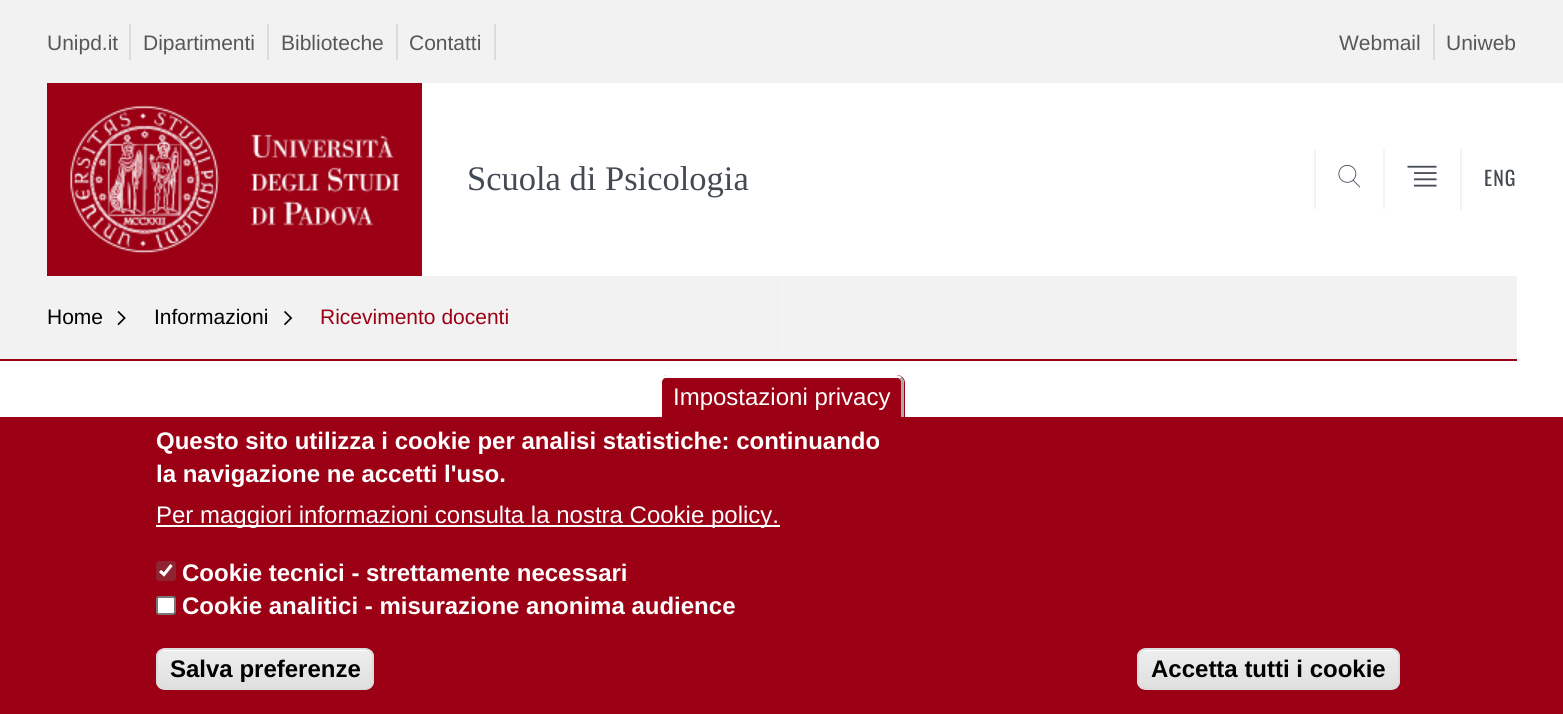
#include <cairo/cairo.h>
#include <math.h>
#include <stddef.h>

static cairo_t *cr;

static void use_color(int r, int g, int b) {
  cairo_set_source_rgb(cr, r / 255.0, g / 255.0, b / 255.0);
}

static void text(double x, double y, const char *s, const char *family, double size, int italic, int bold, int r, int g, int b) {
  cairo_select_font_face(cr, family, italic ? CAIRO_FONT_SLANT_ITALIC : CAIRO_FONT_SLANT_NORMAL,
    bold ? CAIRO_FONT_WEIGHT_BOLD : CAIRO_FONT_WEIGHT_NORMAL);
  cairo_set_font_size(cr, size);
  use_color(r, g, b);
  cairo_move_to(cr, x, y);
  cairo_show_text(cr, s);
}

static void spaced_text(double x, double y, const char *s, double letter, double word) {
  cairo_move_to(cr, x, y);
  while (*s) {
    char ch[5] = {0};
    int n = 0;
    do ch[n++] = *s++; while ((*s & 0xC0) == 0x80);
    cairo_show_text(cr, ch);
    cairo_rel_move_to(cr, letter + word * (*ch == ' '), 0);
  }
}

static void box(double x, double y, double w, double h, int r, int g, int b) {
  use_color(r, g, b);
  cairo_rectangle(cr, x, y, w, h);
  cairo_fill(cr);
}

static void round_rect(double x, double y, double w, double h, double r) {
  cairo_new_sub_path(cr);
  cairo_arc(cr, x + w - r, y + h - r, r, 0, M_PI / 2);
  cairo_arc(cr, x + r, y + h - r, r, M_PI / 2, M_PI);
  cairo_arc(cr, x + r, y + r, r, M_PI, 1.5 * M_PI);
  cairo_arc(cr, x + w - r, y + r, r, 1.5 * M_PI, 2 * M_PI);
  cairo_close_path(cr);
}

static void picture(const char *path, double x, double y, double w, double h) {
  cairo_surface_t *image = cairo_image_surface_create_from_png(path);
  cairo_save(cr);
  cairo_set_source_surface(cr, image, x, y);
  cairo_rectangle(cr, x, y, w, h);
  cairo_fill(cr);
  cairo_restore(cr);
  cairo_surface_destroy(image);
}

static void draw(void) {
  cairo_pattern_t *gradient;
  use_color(255, 255, 255);
  cairo_paint(cr);
  box(0, 0, 1563, 276, 242, 242, 242);
  box(129, 24, 2, 36, 220, 220, 220);
  box(267, 24, 2, 36, 220, 220, 220);
  box(396, 24, 2, 36, 220, 220, 220);
  box(494, 24, 2, 36, 220, 220, 220);
  box(1433, 24, 2, 36, 220, 220, 220);
  gradient = cairo_pattern_create_linear(0, 179, 1563, 179);
  cairo_pattern_add_color_stop_rgba(gradient, 0, 0.608, 0, 0.078, 0);
  cairo_pattern_add_color_stop_rgba(gradient, 0.5, 1, 1, 1, 0);
  cairo_pattern_add_color_stop_rgba(gradient, 0.51, 1, 1, 1, 1);
  cairo_pattern_add_color_stop_rgba(gradient, 1, 1, 1, 1, 1);
  cairo_set_source(cr, gradient);
  cairo_pattern_destroy(gradient);
  cairo_rectangle(cr, 1517, 83, 46, 193);
  cairo_fill(cr);
  box(422, 83, 1095, 193, 255, 255, 255);
  box(47, 83, 375, 193, 155, 0, 20);
  picture("img_01.png", 70, 105, 329, 149);
  box(1314, 150, 2, 59, 242, 242, 242);
  picture("img_02.png", 1338, 164, 22, 24);
  box(1383, 150, 2, 59, 242, 242, 242);
  picture("img_03.png", 1407, 165, 30, 22);
  box(1460, 149, 2, 61, 242, 242, 242);
  gradient = cairo_pattern_create_linear(0, 317, 1563, 317);
  cairo_pattern_add_color_stop_rgba(gradient, 0, 0.949, 0.949, 0.949, 1);
  cairo_pattern_add_color_stop_rgba(gradient, 0.5, 0.949, 0.949, 0.949, 1);
  cairo_pattern_add_color_stop_rgba(gradient, 0.51, 1, 1, 1, 1);
  cairo_pattern_add_color_stop_rgba(gradient, 1, 1, 1, 1, 1);
  cairo_set_source(cr, gradient);
  cairo_pattern_destroy(gradient);
  cairo_rectangle(cr, 0, 276, 794, 83);
  cairo_fill(cr);
  box(785, 276, 732, 83, 242, 242, 242);
  picture("img_04.png", 117, 311, 9, 15);
  picture("img_05.png", 284, 311, 9, 15);
  gradient = cairo_pattern_create_linear(0, 359, 1563, 359);
  cairo_pattern_add_color_stop_rgba(gradient, 0, 0.608, 0, 0.078, 1);
  cairo_pattern_add_color_stop_rgba(gradient, 0.5, 0.608, 0, 0.078, 1);
  cairo_pattern_add_color_stop_rgba(gradient, 0.51, 1, 1, 1, 1);
  cairo_pattern_add_color_stop_rgba(gradient, 1, 1, 1, 1, 1);
  cairo_set_source(cr, gradient);
  cairo_pattern_destroy(gradient);
  cairo_rectangle(cr, 0, 359, 797, 2);
  cairo_fill(cr);
  box(782, 359, 735, 2, 155, 0, 20);
  box(0, 417, 1563, 297, 155, 0, 20);
  cairo_new_path(cr);
  cairo_move_to(cr, 668, 375);
  cairo_line_to(cr, 897, 375);
  cairo_curve_to(cr, 901.5, 375, 905, 378.5, 905, 383);
  cairo_line_to(cr, 905, 417);
  cairo_line_to(cr, 660, 417);
  cairo_line_to(cr, 660, 383);
  cairo_curve_to(cr, 660, 378.5, 663.5, 375, 668, 375);
  cairo_close_path(cr);
  cairo_fill(cr);
  use_color(255, 255, 255);
  cairo_new_path(cr);
  cairo_move_to(cr, 667, 375);
  cairo_curve_to(cr, 665, 375, 663, 376, 661, 377);
  cairo_line_to(cr, 663, 379);
  cairo_curve_to(cr, 664, 378, 666, 378, 667, 378);
  cairo_line_to(cr, 896, 378);
  cairo_curve_to(cr, 897, 378, 899, 378, 900, 379);
  cairo_line_to(cr, 902, 377);
  cairo_curve_to(cr, 900, 376, 898, 375, 896, 375);
  cairo_close_path(cr);
  cairo_fill(cr);
  use_color(170, 170, 170);
  cairo_new_path(cr);
  cairo_move_to(cr, 899.5, 379);
  cairo_line_to(cr, 901.5, 377);
  cairo_curve_to(cr, 902.5, 378, 903.5, 379, 904, 380.5);
  cairo_line_to(cr, 904, 417);
  cairo_line_to(cr, 901, 417);
  cairo_line_to(cr, 901, 382);
  cairo_curve_to(cr, 901, 381, 900.5, 380, 899.5, 379);
  cairo_close_path(cr);
  cairo_fill(cr);
  use_color(255, 255, 255);
  cairo_new_path(cr);
  cairo_move_to(cr, 659.5, 417);
  cairo_line_to(cr, 659.5, 380);
  cairo_curve_to(cr, 659.5, 379, 660.5, 378, 661.5, 377);
  cairo_line_to(cr, 663.5, 379);
  cairo_curve_to(cr, 662.5, 380, 662, 381, 662, 382);
  cairo_line_to(cr, 662, 417);
  cairo_close_path(cr);
  cairo_fill(cr);
  box(156, 525, 624, 2, 255, 255, 255);
  use_color(144, 35, 49);
  round_rect(156, 561, 20, 20, 3);
  cairo_fill(cr);
  cairo_new_path(cr);
  cairo_move_to(cr, 160, 571);
  cairo_line_to(cr, 164, 574.5);
  cairo_line_to(cr, 171.5, 565);
  use_color(255, 255, 255);
  cairo_set_line_width(cr, 3.1);
  cairo_stroke(cr);
  round_rect(157, 597, 18, 17, 2);
  cairo_fill_preserve(cr);
  use_color(118, 118, 118);
  cairo_set_line_width(cr, 2);
  cairo_stroke(cr);
  cairo_save(cr);
  round_rect(156, 648, 218, 42, 9);
  cairo_clip(cr);
  gradient = cairo_pattern_create_linear(265, 650, 265, 689);
  cairo_pattern_add_color_stop_rgba(gradient, 0.05, 0.929, 0.929, 0.929, 1);
  cairo_pattern_add_color_stop_rgba(gradient, 1, 0.875, 0.875, 0.875, 1);
  cairo_set_source(cr, gradient);
  cairo_pattern_destroy(gradient);
  cairo_rectangle(cr, 156, 650, 218, 39);
  cairo_fill(cr);
  cairo_restore(cr);
  use_color(255, 255, 255);
  cairo_new_path(cr);
  cairo_move_to(cr, 165, 651);
  cairo_line_to(cr, 364, 651);
  cairo_curve_to(cr, 369, 651, 372, 654, 372, 658);
  cairo_curve_to(cr, 372, 654, 368, 650, 364, 650);
  cairo_line_to(cr, 166, 650);
  cairo_curve_to(cr, 162, 650, 158, 654, 158, 658);
  cairo_curve_to(cr, 158, 654, 161, 651, 165, 651);
  cairo_close_path(cr);
  cairo_fill(cr);
  round_rect(157, 649, 216, 40, 8);
  use_color(220, 220, 220);
  cairo_stroke(cr);
  cairo_save(cr);
  round_rect(1137, 648, 263, 42, 9);
  cairo_clip(cr);
  gradient = cairo_pattern_create_linear(1268, 650, 1268, 689);
  cairo_pattern_add_color_stop_rgba(gradient, 0.05, 0.929, 0.929, 0.929, 1);
  cairo_pattern_add_color_stop_rgba(gradient, 1, 0.875, 0.875, 0.875, 1);
  cairo_set_source(cr, gradient);
  cairo_pattern_destroy(gradient);
  cairo_rectangle(cr, 1137, 650, 263, 39);
  cairo_fill(cr);
  cairo_restore(cr);
  use_color(255, 255, 255);
  cairo_new_path(cr);
  cairo_move_to(cr, 1146, 651);
  cairo_line_to(cr, 1390, 651);
  cairo_curve_to(cr, 1395, 651, 1398, 654, 1398, 658);
  cairo_curve_to(cr, 1398, 654, 1394, 650, 1390, 650);
  cairo_line_to(cr, 1147, 650);
  cairo_curve_to(cr, 1145, 650, 1143, 651, 1141, 652);
  cairo_curve_to(cr, 1143, 652, 1144, 651, 1146, 651);
  cairo_close_path(cr);
  cairo_fill(cr);
  round_rect(1138, 649, 261, 40, 8);
  use_color(220, 220, 220);
  cairo_stroke(cr);
  text(47, 50, "Unipd.it", "Liberation Sans", 21, 0, 0, 87, 87, 87);
  text(143, 50, "Dipartimenti", "Liberation Sans", 21, 0, 0, 87, 87, 87);
  text(281, 50, "Biblioteche", "Liberation Sans", 21, 0, 0, 87, 87, 87);
  text(409, 50, "Contatti", "Liberation Sans", 21, 0, 0, 87, 87, 87);
  text(1339, 50, "Webmail", "Liberation Sans", 21, 0, 0, 87, 87, 87);
  text(1446, 50, "Uniweb", "Liberation Sans", 21, 0, 0, 87, 87, 87);
  text(467, 190, "Scuola di Psicologia", "Liberation Serif", 34.5, 0, 0, 67, 74, 83);
  cairo_select_font_face(cr, "Oswald", CAIRO_FONT_SLANT_NORMAL, CAIRO_FONT_WEIGHT_NORMAL);
  cairo_set_font_size(cr, 20);
  spaced_text(1484, 186, "ENG", 1, 0);
  text(47, 324, "Home", "Liberation Sans", 21, 0, 0, 0, 0, 0);
  text(154, 324, "Informazioni", "Liberation Sans", 21, 0, 0, 0, 0, 0);
  text(320, 324, "Ricevimento docenti", "Liberation Sans", 21, 0, 0, 155, 0, 20);
  text(673, 405, "Impostazioni privacy", "Liberation Sans", 24, 0, 0, 255, 255, 255);
  text(156, 449, "Questo sito utilizza i cookie per analisi statistiche: continuando", "Liberation Sans", 24, 0, 1, 255, 255, 255);
  text(156, 482, "la navigazione ne accetti l'uso.", "Liberation Sans", 24, 0, 1, 255, 255, 255);
  text(156, 523, "Per maggiori informazioni consulta la nostra Cookie policy.", "Liberation Sans", 24, 0, 0, 255, 255, 255);
  text(182, 581, "Cookie tecnici - strettamente necessari", "Liberation Sans", 24, 0, 1, 255, 255, 255);
  text(182, 614, "Cookie analitici - misurazione anonima audience", "Liberation Sans", 24, 0, 1, 255, 255, 255);
  text(170, 677, "Salva preferenze", "Liberation Sans", 24, 0, 1, 0, 0, 0);
  text(1151, 677, "Accetta tutti i cookie", "Liberation Sans", 24, 0, 1, 0, 0, 0);
}

int main(void) {
  cairo_surface_t *surface = cairo_image_surface_create(CAIRO_FORMAT_RGB24, 1563, 714);
  cr = cairo_create(surface);
  cairo_font_options_t *options = cairo_font_options_create();
  cairo_font_options_set_hint_metrics(options, CAIRO_HINT_METRICS_OFF);
  cairo_font_options_set_hint_style(options, CAIRO_HINT_STYLE_NONE);
  cairo_set_font_options(cr, options);
  cairo_set_miter_limit(cr, 4);
  draw();
  cairo_surface_write_to_png(surface, "out.png");
  cairo_font_options_destroy(options);
  cairo_destroy(cr);
  cairo_surface_destroy(surface);
  return 0;
}
